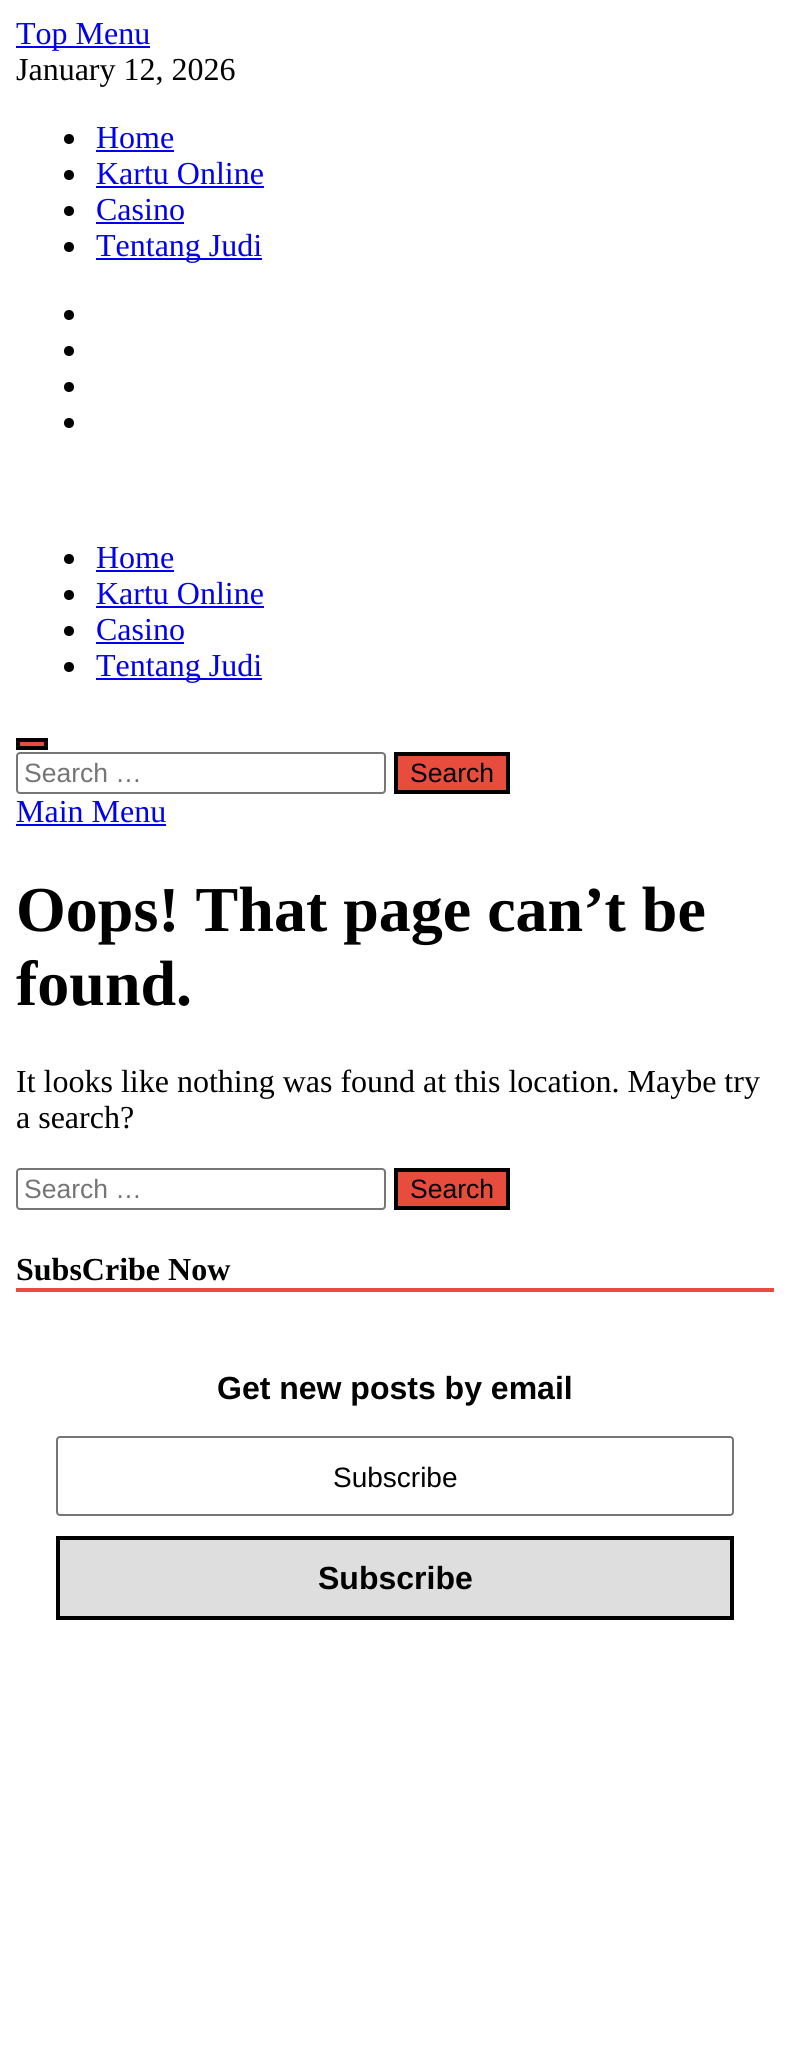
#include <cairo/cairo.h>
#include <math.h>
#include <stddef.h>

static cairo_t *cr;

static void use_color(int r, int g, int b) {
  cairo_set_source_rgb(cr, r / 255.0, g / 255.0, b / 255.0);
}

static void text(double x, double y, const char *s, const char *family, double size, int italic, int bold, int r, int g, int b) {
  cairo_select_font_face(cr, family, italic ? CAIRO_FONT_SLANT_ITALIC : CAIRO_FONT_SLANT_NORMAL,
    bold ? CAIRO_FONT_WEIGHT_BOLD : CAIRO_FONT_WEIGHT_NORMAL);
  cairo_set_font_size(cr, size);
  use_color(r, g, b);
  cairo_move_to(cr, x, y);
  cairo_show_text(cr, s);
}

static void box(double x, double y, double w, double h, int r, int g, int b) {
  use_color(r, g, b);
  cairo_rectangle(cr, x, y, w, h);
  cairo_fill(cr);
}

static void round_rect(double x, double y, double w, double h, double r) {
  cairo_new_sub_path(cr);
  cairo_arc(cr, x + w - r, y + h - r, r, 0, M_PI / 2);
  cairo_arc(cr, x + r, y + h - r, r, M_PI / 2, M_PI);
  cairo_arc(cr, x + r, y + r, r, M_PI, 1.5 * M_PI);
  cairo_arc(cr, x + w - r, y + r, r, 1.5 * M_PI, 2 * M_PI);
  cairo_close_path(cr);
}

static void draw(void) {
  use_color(255, 255, 255);
  cairo_paint(cr);
  box(16, 46, 134, 2, 0, 0, 238);
  use_color(0, 0, 0);
  cairo_arc(cr, 69, 139, 5, 0, 2 * M_PI);
  cairo_fill(cr);
  box(96, 150, 78, 2, 0, 0, 238);
  use_color(0, 0, 0);
  cairo_arc(cr, 69, 175, 5, 0, 2 * M_PI);
  cairo_fill(cr);
  box(96, 186, 168, 2, 0, 0, 238);
  use_color(0, 0, 0);
  cairo_arc(cr, 69, 211, 5, 0, 2 * M_PI);
  cairo_fill(cr);
  box(96, 222, 88, 2, 0, 0, 238);
  use_color(0, 0, 0);
  cairo_arc(cr, 69, 247, 5, 0, 2 * M_PI);
  cairo_fill(cr);
  box(96, 258, 166, 2, 0, 0, 238);
  use_color(0, 0, 0);
  cairo_arc(cr, 69, 315, 5, 0, 2 * M_PI);
  cairo_fill(cr);
  cairo_arc(cr, 69, 351, 5, 0, 2 * M_PI);
  cairo_fill(cr);
  cairo_arc(cr, 69, 387, 5, 0, 2 * M_PI);
  cairo_fill(cr);
  cairo_arc(cr, 69, 423, 5, 0, 2 * M_PI);
  cairo_fill(cr);
  cairo_arc(cr, 69, 559, 5, 0, 2 * M_PI);
  cairo_fill(cr);
  box(96, 570, 78, 2, 0, 0, 238);
  use_color(0, 0, 0);
  cairo_arc(cr, 69, 595, 5, 0, 2 * M_PI);
  cairo_fill(cr);
  box(96, 606, 168, 2, 0, 0, 238);
  use_color(0, 0, 0);
  cairo_arc(cr, 69, 631, 5, 0, 2 * M_PI);
  cairo_fill(cr);
  box(96, 642, 88, 2, 0, 0, 238);
  use_color(0, 0, 0);
  cairo_arc(cr, 69, 667, 5, 0, 2 * M_PI);
  cairo_fill(cr);
  box(96, 678, 166, 2, 0, 0, 238);
  use_color(231, 76, 60);
  cairo_rectangle(cr, 18, 740, 28, 8);
  cairo_fill_preserve(cr);
  use_color(0, 0, 0);
  cairo_set_line_width(cr, 4);
  cairo_stroke(cr);
  round_rect(17, 753, 368, 40, 3);
  use_color(118, 118, 118);
  cairo_set_line_width(cr, 2);
  cairo_stroke(cr);
  use_color(231, 76, 60);
  cairo_rectangle(cr, 396, 754, 112, 38);
  cairo_fill_preserve(cr);
  use_color(0, 0, 0);
  cairo_set_line_width(cr, 4);
  cairo_stroke(cr);
  box(16, 824, 150, 2, 0, 0, 238);
  round_rect(17, 1169, 368, 40, 3);
  use_color(118, 118, 118);
  cairo_set_line_width(cr, 2);
  cairo_stroke(cr);
  use_color(231, 76, 60);
  cairo_rectangle(cr, 396, 1170, 112, 38);
  cairo_fill_preserve(cr);
  use_color(0, 0, 0);
  cairo_set_line_width(cr, 4);
  cairo_stroke(cr);
  box(16, 1288, 758, 4, 231, 76, 60);
  round_rect(57, 1437, 676, 78, 3);
  use_color(118, 118, 118);
  cairo_set_line_width(cr, 2);
  cairo_stroke(cr);
  use_color(222, 222, 222);
  cairo_rectangle(cr, 58, 1538, 674, 80);
  cairo_fill_preserve(cr);
  use_color(0, 0, 0);
  cairo_set_line_width(cr, 4);
  cairo_stroke(cr);
  text(16, 44, "Top Menu", "Liberation Serif", 32, 0, 0, 0, 0, 238);
  text(16, 80, "January 12, 2026", "Liberation Serif", 32, 0, 0, 0, 0, 0);
  text(96, 148, "Home", "Liberation Serif", 32, 0, 0, 0, 0, 238);
  text(96, 184, "Kartu Online", "Liberation Serif", 32, 0, 0, 0, 0, 238);
  text(96, 220, "Casino", "Liberation Serif", 32, 0, 0, 0, 0, 238);
  text(96, 256, "Tentang Judi", "Liberation Serif", 32, 0, 0, 0, 0, 238);
  text(96, 568, "Home", "Liberation Serif", 32, 0, 0, 0, 0, 238);
  text(96, 604, "Kartu Online", "Liberation Serif", 32, 0, 0, 0, 0, 238);
  text(96, 640, "Casino", "Liberation Serif", 32, 0, 0, 0, 0, 238);
  text(96, 676, "Tentang Judi", "Liberation Serif", 32, 0, 0, 0, 0, 238);
  text(24, 782, "Search …", "Liberation Sans", 26.5, 0, 0, 117, 117, 117);
  text(410, 782, "Search", "Liberation Sans", 26.5, 0, 0, 0, 0, 0);
  text(16, 822, "Main Menu", "Liberation Serif", 32, 0, 0, 0, 0, 238);
  text(16, 931, "Oops! That page can’t be", "Liberation Serif", 64, 0, 1, 0, 0, 0);
  text(16, 1005, "found.", "Liberation Serif", 64, 0, 1, 0, 0, 0);
  text(16, 1092, "It looks like nothing was found at this location. Maybe try", "Liberation Serif", 32, 0, 0, 0, 0, 0);
  text(16, 1128, "a search?", "Liberation Serif", 32, 0, 0, 0, 0, 0);
  text(24, 1198, "Search …", "Liberation Sans", 26.5, 0, 0, 117, 117, 117);
  text(410, 1198, "Search", "Liberation Sans", 26.5, 0, 0, 0, 0, 0);
  text(16, 1280, "SubsCribe Now", "Liberation Serif", 32, 0, 1, 0, 0, 0);
  text(217, 1399, "Get new posts by email", "Liberation Sans", 32, 0, 1, 0, 0, 0);
  text(333, 1487, "Subscribe", "Liberation Sans", 28, 0, 0, 0, 0, 0);
  text(318, 1589, "Subscribe", "Liberation Sans", 32, 0, 1, 0, 0, 0);
}

int main(void) {
  cairo_surface_t *surface = cairo_image_surface_create(CAIRO_FORMAT_RGB24, 790, 2069);
  cr = cairo_create(surface);
  cairo_font_options_t *options = cairo_font_options_create();
  cairo_font_options_set_hint_metrics(options, CAIRO_HINT_METRICS_OFF);
  cairo_font_options_set_hint_style(options, CAIRO_HINT_STYLE_NONE);
  cairo_set_font_options(cr, options);
  cairo_set_miter_limit(cr, 4);
  draw();
  cairo_surface_write_to_png(surface, "out.png");
  cairo_font_options_destroy(options);
  cairo_destroy(cr);
  cairo_surface_destroy(surface);
  return 0;
}
